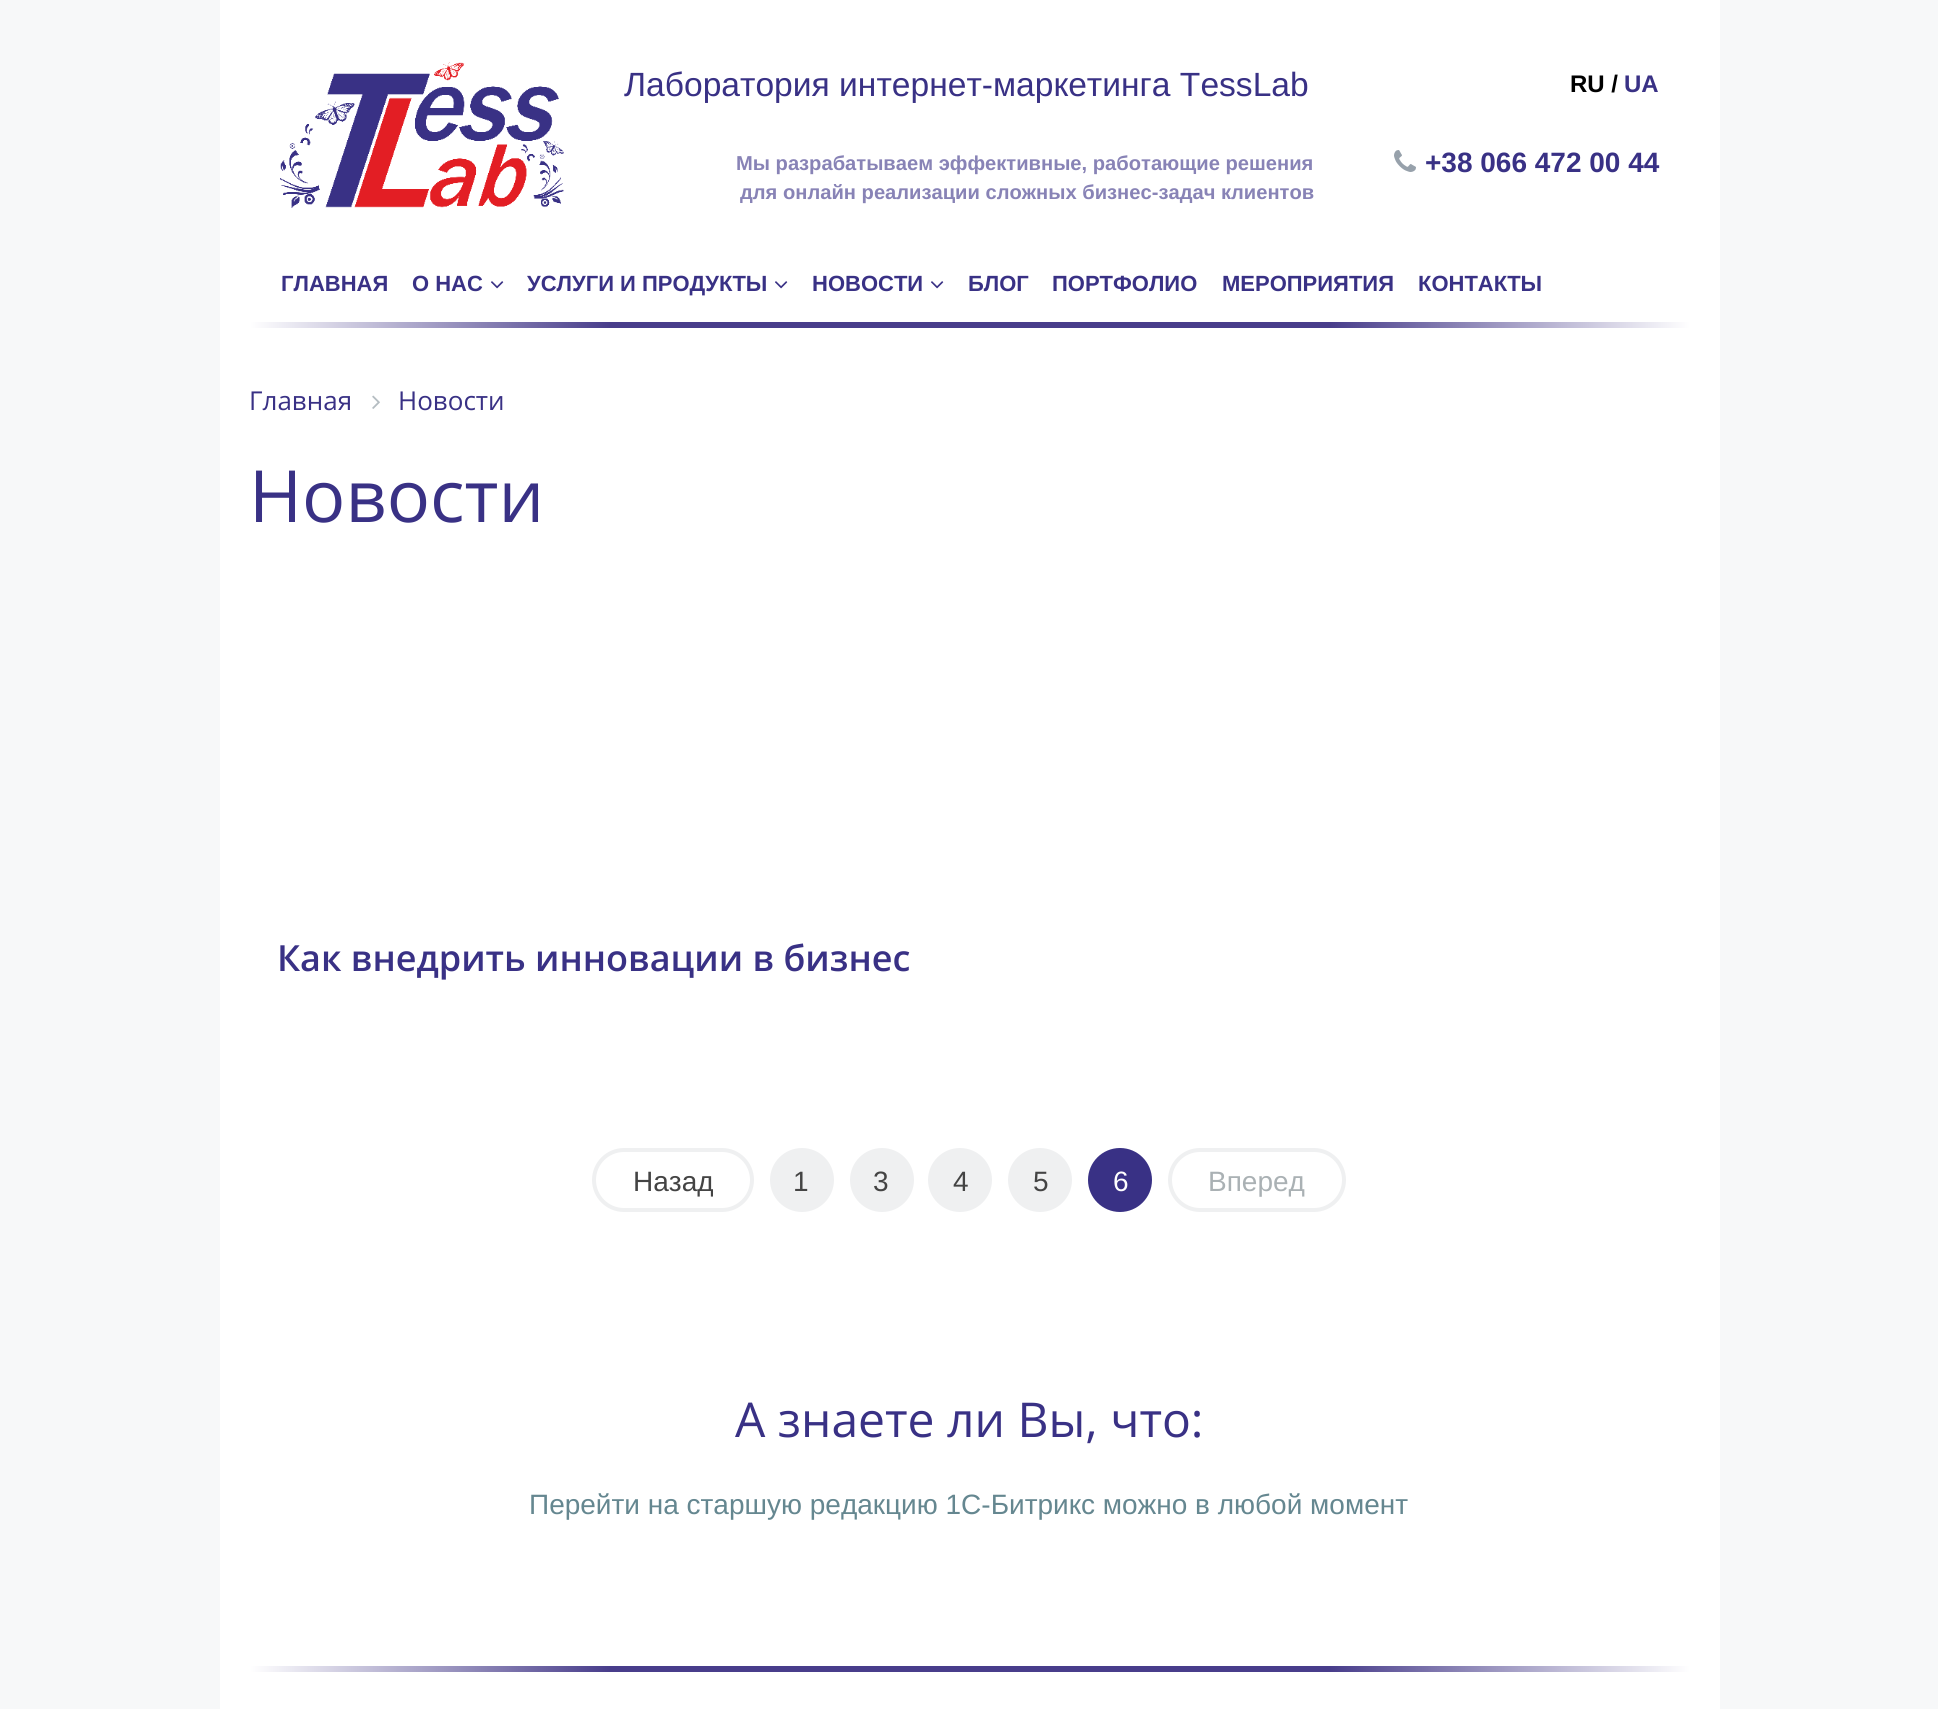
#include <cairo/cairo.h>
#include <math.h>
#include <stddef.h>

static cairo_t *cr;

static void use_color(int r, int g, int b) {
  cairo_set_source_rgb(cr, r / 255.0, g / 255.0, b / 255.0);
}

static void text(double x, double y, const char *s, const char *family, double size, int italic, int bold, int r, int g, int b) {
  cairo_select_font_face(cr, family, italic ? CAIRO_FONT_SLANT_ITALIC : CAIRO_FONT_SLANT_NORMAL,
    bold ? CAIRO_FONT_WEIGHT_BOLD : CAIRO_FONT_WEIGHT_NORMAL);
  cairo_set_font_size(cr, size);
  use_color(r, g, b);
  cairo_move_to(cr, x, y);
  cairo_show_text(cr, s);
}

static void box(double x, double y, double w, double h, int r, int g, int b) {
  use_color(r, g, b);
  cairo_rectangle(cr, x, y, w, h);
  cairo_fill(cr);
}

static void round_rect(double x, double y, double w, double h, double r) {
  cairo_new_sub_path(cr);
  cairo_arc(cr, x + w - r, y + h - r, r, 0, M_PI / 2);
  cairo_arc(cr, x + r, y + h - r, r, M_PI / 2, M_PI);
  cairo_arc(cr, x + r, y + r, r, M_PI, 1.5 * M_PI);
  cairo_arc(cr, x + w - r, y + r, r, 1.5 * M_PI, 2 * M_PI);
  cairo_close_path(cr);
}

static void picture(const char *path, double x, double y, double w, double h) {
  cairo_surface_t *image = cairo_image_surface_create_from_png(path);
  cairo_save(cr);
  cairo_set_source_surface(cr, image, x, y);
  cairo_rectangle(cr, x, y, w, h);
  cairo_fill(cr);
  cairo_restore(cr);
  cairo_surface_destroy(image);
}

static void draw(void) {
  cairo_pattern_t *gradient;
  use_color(247, 248, 249);
  cairo_paint(cr);
  box(220, 0, 1500, 1709, 255, 255, 255);
  picture("img_01.png", 280, 62, 284, 146);
  picture("img_02.png", 1394, 150, 22, 22);
  picture("img_03.png", 491, 281, 13, 8);
  picture("img_03.png", 775, 281, 13, 8);
  picture("img_03.png", 931, 281, 13, 8);
  gradient = cairo_pattern_create_radial(970, 325, 0, 970, 325, 720);
  cairo_pattern_add_color_stop_rgba(gradient, 0.5, 0.282, 0.239, 0.545, 1);
  cairo_pattern_add_color_stop_rgba(gradient, 1, 1, 1, 1, 1);
  cairo_set_source(cr, gradient);
  cairo_pattern_destroy(gradient);
  cairo_rectangle(cr, 250, 322, 1440, 6);
  cairo_fill(cr);
  picture("img_04.png", 372, 395, 8, 14);
  round_rect(594, 1150, 158, 60, 30);
  use_color(239, 240, 241);
  cairo_set_line_width(cr, 4);
  cairo_stroke(cr);
  cairo_arc(cr, 802, 1180, 32, 0, 2 * M_PI);
  cairo_fill(cr);
  cairo_arc(cr, 882, 1180, 32, 0, 2 * M_PI);
  cairo_fill(cr);
  cairo_arc(cr, 960, 1180, 32, 0, 2 * M_PI);
  cairo_fill(cr);
  cairo_arc(cr, 1040, 1180, 32, 0, 2 * M_PI);
  cairo_fill(cr);
  use_color(57, 49, 133);
  cairo_arc(cr, 1120, 1180, 32, 0, 2 * M_PI);
  cairo_fill(cr);
  round_rect(1170, 1150, 174, 60, 30);
  use_color(239, 240, 241);
  cairo_stroke(cr);
  gradient = cairo_pattern_create_radial(970, 1669, 0, 970, 1669, 720);
  cairo_pattern_add_color_stop_rgba(gradient, 0.5, 0.282, 0.239, 0.545, 1);
  cairo_pattern_add_color_stop_rgba(gradient, 1, 1, 1, 1, 1);
  cairo_set_source(cr, gradient);
  cairo_pattern_destroy(gradient);
  cairo_rectangle(cr, 250, 1666, 1440, 6);
  cairo_fill(cr);
  text(624, 96, "Лаборатория интернет-маркетинга TessLab", "Liberation Sans", 33.6, 0, 0, 57, 49, 133);
  text(736, 170, "Мы разрабатываем эффективные, работающие решения", "Liberation Sans", 20.15, 0, 1, 136, 131, 182);
  text(740, 199, "для онлайн реализации сложных бизнес-задач клиентов", "Liberation Sans", 20.15, 0, 1, 136, 131, 182);
  text(1570, 92, "RU /", "Liberation Sans", 24, 0, 1, 0, 0, 0);
  text(1624, 92, "UA", "Liberation Sans", 24, 0, 1, 57, 49, 133);
  text(1425, 172, "+38 066 472 00 44", "Liberation Sans", 28, 0, 1, 57, 49, 133);
  text(281, 291, "ГЛАВНАЯ", "Liberation Sans", 22, 0, 1, 57, 49, 133);
  text(412, 291, "О НАС", "Liberation Sans", 22, 0, 1, 57, 49, 133);
  text(527, 291, "УСЛУГИ И ПРОДУКТЫ", "Liberation Sans", 22, 0, 1, 57, 49, 133);
  text(812, 291, "НОВОСТИ", "Liberation Sans", 22, 0, 1, 57, 49, 133);
  text(968, 291, "БЛОГ", "Liberation Sans", 22, 0, 1, 57, 49, 133);
  text(1052, 291, "ПОРТФОЛИО", "Liberation Sans", 22, 0, 1, 57, 49, 133);
  text(1222, 291, "МЕРОПРИЯТИЯ", "Liberation Sans", 22, 0, 1, 57, 49, 133);
  text(1418, 291, "КОНТАКТЫ", "Liberation Sans", 22, 0, 1, 57, 49, 133);
  text(249, 410, "Главная", "Open Sans", 26, 0, 0, 57, 49, 133);
  text(398, 410, "Новости", "Open Sans", 26, 0, 0, 57, 49, 133);
  text(249, 522, "Новости", "Open Sans", 72, 0, 0, 57, 49, 133);
  text(277, 971, "Как внедрить инновации в бизнес", "Open Sans SemiBold", 36, 0, 0, 57, 49, 133);
  text(633, 1191, "Назад", "Liberation Sans", 28, 0, 0, 68, 68, 68);
  text(793, 1191, "1", "Liberation Sans", 28, 0, 0, 68, 68, 68);
  text(873, 1191, "3", "Liberation Sans", 28, 0, 0, 68, 68, 68);
  text(953, 1191, "4", "Liberation Sans", 28, 0, 0, 68, 68, 68);
  text(1033, 1191, "5", "Liberation Sans", 28, 0, 0, 68, 68, 68);
  text(1113, 1191, "6", "Liberation Sans", 28, 0, 0, 255, 255, 255);
  text(1208, 1191, "Вперед", "Liberation Sans", 28, 0, 0, 170, 177, 180);
  text(735, 1437, "А знаете ли Вы, что:", "Open Sans", 48, 0, 0, 57, 49, 133);
  text(529, 1514, "Перейти на старшую редакцию 1С-Битрикс можно в любой момент", "Liberation Sans", 28, 0, 0, 101, 135, 144);
}

int main(void) {
  cairo_surface_t *surface = cairo_image_surface_create(CAIRO_FORMAT_RGB24, 1938, 1709);
  cr = cairo_create(surface);
  cairo_font_options_t *options = cairo_font_options_create();
  cairo_font_options_set_hint_metrics(options, CAIRO_HINT_METRICS_OFF);
  cairo_font_options_set_hint_style(options, CAIRO_HINT_STYLE_NONE);
  cairo_set_font_options(cr, options);
  cairo_set_miter_limit(cr, 4);
  draw();
  cairo_surface_write_to_png(surface, "out.png");
  cairo_font_options_destroy(options);
  cairo_destroy(cr);
  cairo_surface_destroy(surface);
  return 0;
}
